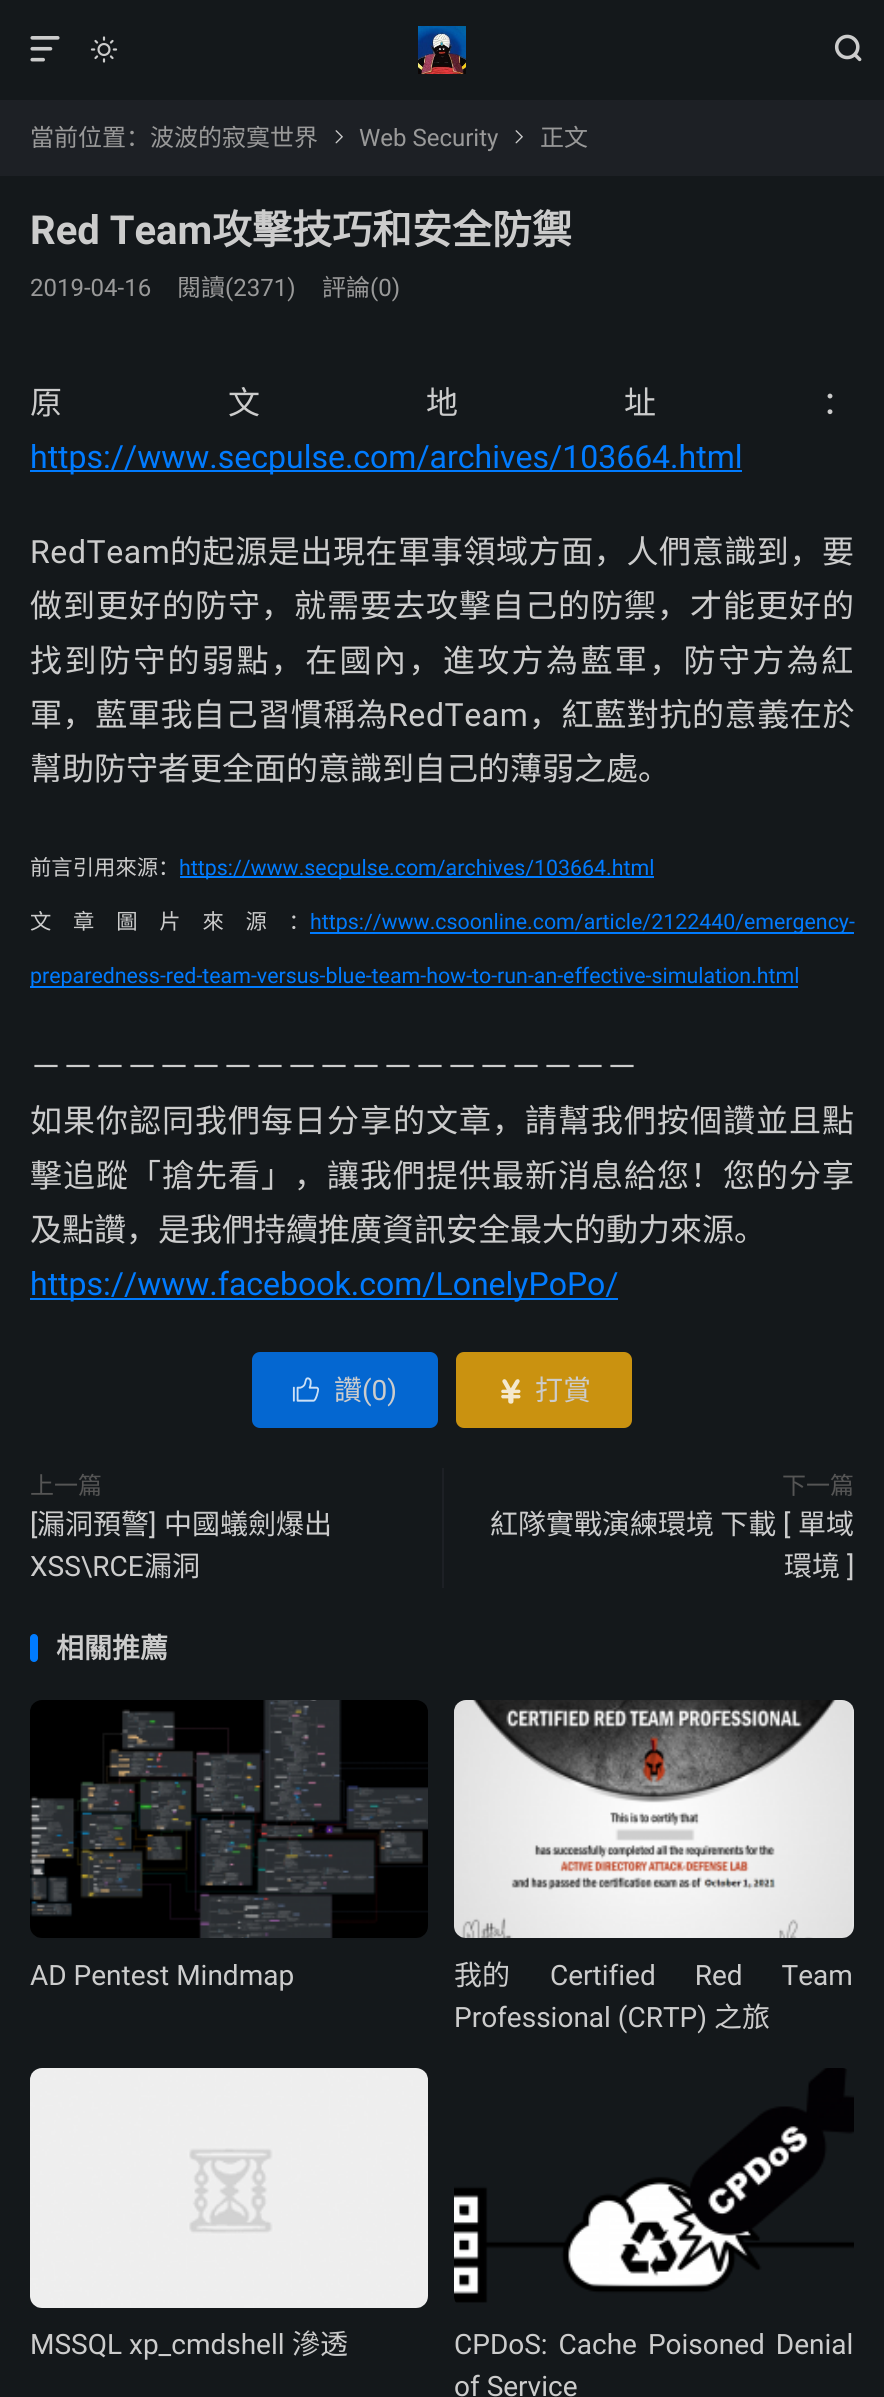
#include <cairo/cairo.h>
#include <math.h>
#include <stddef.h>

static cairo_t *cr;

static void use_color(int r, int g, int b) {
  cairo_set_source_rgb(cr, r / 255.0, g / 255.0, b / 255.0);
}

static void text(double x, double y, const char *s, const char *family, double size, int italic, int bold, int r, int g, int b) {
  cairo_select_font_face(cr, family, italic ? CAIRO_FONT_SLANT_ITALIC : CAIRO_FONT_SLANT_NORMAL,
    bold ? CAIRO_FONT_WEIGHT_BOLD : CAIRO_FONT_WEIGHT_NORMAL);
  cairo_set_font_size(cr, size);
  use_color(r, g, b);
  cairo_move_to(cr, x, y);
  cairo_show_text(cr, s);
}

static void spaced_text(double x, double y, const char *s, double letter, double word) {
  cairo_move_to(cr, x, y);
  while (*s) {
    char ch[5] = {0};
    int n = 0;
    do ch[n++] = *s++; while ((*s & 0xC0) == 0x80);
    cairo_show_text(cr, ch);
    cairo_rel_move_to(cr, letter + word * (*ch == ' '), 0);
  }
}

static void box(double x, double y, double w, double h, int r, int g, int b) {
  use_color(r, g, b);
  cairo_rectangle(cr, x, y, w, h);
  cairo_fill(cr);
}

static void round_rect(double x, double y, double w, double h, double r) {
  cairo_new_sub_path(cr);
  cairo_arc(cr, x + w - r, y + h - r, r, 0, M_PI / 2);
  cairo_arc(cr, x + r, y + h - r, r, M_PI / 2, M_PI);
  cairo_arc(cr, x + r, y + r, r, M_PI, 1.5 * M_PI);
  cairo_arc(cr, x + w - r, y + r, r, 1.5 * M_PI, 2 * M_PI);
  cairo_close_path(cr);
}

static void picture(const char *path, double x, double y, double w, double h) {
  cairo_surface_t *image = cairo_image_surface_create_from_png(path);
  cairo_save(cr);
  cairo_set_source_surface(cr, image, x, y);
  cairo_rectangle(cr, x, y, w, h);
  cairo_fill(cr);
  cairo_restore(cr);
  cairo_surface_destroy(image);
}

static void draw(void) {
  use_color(29, 32, 37);
  cairo_paint(cr);
  box(0, 0, 884, 100, 20, 24, 27);
  picture("img_01.png", 418, 26, 48, 48);
  picture("img_02.png", 90, 36, 28, 27);
  picture("img_03.png", 834, 34, 28, 28);
  picture("img_04.png", 30, 36, 30, 26);
  picture("img_05.png", 335, 130, 8, 14);
  picture("img_05.png", 515, 130, 8, 14);
  box(0, 176, 884, 2221, 20, 24, 27);
  box(30, 470, 712, 2, 0, 123, 255);
  box(180, 876, 474, 2, 0, 123, 255);
  box(310, 932, 544, 2, 0, 123, 255);
  box(30, 986, 768, 2, 0, 123, 255);
  box(30, 1298, 588, 2, 0, 123, 255);
  use_color(4, 103, 209);
  round_rect(252, 1352, 186, 76, 8);
  cairo_fill(cr);
  picture("img_06.png", 292, 1377, 28, 25);
  use_color(202, 146, 16);
  round_rect(456, 1352, 176, 76, 8);
  cairo_fill(cr);
  picture("img_07.png", 501, 1379, 20, 25);
  box(442, 1468, 2, 120, 29, 32, 37);
  use_color(0, 123, 255);
  round_rect(30, 1634, 8, 28, 4);
  cairo_fill(cr);
  picture("img_08.png", 30, 1700, 398, 238);
  picture("img_09.png", 454, 1700, 400, 238);
  picture("img_10.png", 30, 2068, 398, 240);
  picture("img_11.png", 454, 2068, 400, 235);
  text(30, 146, "當前位置：波波的寂寞世界", "Noto Sans CJK SC", 24, 0, 0, 153, 153, 153);
  text(359, 146, "Web Security", "Roboto", 24, 0, 0, 153, 153, 153);
  text(540, 146, "正文", "Noto Sans CJK SC", 24, 0, 0, 153, 153, 153);
  text(30, 244, "Red Team", "Roboto", 40, 0, 1, 204, 204, 204);
  text(212, 244, "攻擊技巧和安全防禦", "Noto Sans CJK SC", 40, 0, 1, 204, 204, 204);
  text(30, 296, "2019-04-16", "Roboto", 24, 0, 0, 153, 153, 153);
  text(177, 296, "閱讀", "Noto Sans CJK SC", 24, 0, 0, 153, 153, 153);
  text(225, 296, "(2371)", "Roboto", 24, 0, 0, 153, 153, 153);
  text(322, 296, "評論", "Noto Sans CJK SC", 24, 0, 0, 153, 153, 153);
  text(370, 296, "(0)", "Roboto", 24, 0, 0, 153, 153, 153);
  cairo_select_font_face(cr, "Noto Sans CJK SC", CAIRO_FONT_SLANT_NORMAL, CAIRO_FONT_WEIGHT_NORMAL);
  cairo_set_font_size(cr, 32);
  use_color(204, 204, 204);
  spaced_text(30, 414, "原文地址：", 166, 0);
  text(30, 468, "https://www.secpulse.com/archives/103664.html", "Roboto", 32, 0, 0, 0, 123, 255);
  use_color(204, 204, 204);
  spaced_text(30, 563, "RedTeam", 0.6, 0);
  cairo_select_font_face(cr, "Noto Sans CJK SC", CAIRO_FONT_SLANT_NORMAL, CAIRO_FONT_WEIGHT_NORMAL);
  spaced_text(170, 563, "的起源是出現在軍事領域方面，人們意識到，要", 0.6, 0);
  spaced_text(30, 617, "做到更好的防守，就需要去攻擊自己的防禦，才能更好的", 1, 0);
  spaced_text(30, 672, "找到防守的弱點，在國內，進攻方為藍軍，防守方為紅", 2.4, 0);
  spaced_text(30, 726, "軍，藍軍我自己習慣稱為", 0.6, 0);
  cairo_select_font_face(cr, "Roboto", CAIRO_FONT_SLANT_NORMAL, CAIRO_FONT_WEIGHT_NORMAL);
  spaced_text(388, 726, "RedTeam", 0.6, 0);
  cairo_select_font_face(cr, "Noto Sans CJK SC", CAIRO_FONT_SLANT_NORMAL, CAIRO_FONT_WEIGHT_NORMAL);
  spaced_text(529, 726, "，紅藍對抗的意義在於", 0.6, 0);
  text(30, 780, "幫助防守者更全面的意識到自己的薄弱之處。", "Noto Sans CJK SC", 32, 0, 0, 204, 204, 204);
  text(30, 875, "前言引用來源：", "Noto Sans CJK SC", 21.35, 0, 0, 204, 204, 204);
  text(179, 875, "https://www.secpulse.com/archives/103664.html", "Roboto", 21.35, 0, 0, 0, 123, 255);
  cairo_select_font_face(cr, "Noto Sans CJK SC", CAIRO_FONT_SLANT_NORMAL, CAIRO_FONT_WEIGHT_NORMAL);
  use_color(204, 204, 204);
  spaced_text(30, 929, "文章圖片來源：", 21.75, 0);
  text(310, 929, "https://www.csoonline.com/article/2122440/emergency-", "Roboto", 21.35, 0, 0, 0, 123, 255);
  text(30, 983, "preparedness-red-team-versus-blue-team-how-to-run-an-effective-simulation.html", "Roboto", 21.35, 0, 0, 0, 123, 255);
  text(30, 1078, "－－－－－－－－－－－－－－－－－－－", "Noto Sans CJK SC", 32, 0, 0, 204, 204, 204);
  spaced_text(30, 1132, "如果你認同我們每日分享的文章，請幫我們按個讚並且點", 1, 0);
  spaced_text(30, 1187, "擊追蹤「搶先看」，讓我們提供最新消息給您！您的分享", 1, 0);
  text(30, 1241, "及點讚，是我們持續推廣資訊安全最大的動力來源。", "Noto Sans CJK SC", 32, 0, 0, 204, 204, 204);
  text(30, 1295, "https://www.facebook.com/LonelyPoPo/", "Roboto", 32, 0, 0, 0, 123, 255);
  text(334, 1400, "讚", "Noto Sans CJK SC", 28, 0, 0, 204, 204, 204);
  text(362, 1400, "(0)", "Roboto", 28, 0, 0, 204, 204, 204);
  text(535, 1400, "打賞", "Noto Sans CJK SC", 28, 0, 0, 204, 204, 204);
  text(30, 1494, "上一篇", "Noto Sans CJK SC", 24, 0, 0, 85, 85, 85);
  text(30, 1534, "[", "Roboto", 28, 0, 0, 204, 204, 204);
  text(37, 1534, "漏洞預警", "Noto Sans CJK SC", 28, 0, 0, 204, 204, 204);
  text(149, 1534, "]", "Roboto", 28, 0, 0, 204, 204, 204);
  text(164, 1534, "中國蟻劍爆出", "Noto Sans CJK SC", 28, 0, 0, 204, 204, 204);
  text(30, 1576, "XSS\\RCE", "Roboto", 28, 0, 0, 204, 204, 204);
  text(144, 1576, "漏洞", "Noto Sans CJK SC", 28, 0, 0, 204, 204, 204);
  text(782, 1494, "下一篇", "Noto Sans CJK SC", 24, 0, 0, 85, 85, 85);
  text(490, 1534, "紅隊實戰演練環境 下載", "Noto Sans CJK SC", 28, 0, 0, 204, 204, 204);
  text(783, 1534, "[", "Roboto", 28, 0, 0, 204, 204, 204);
  text(798, 1534, "單域", "Noto Sans CJK SC", 28, 0, 0, 204, 204, 204);
  text(784, 1576, "環境", "Noto Sans CJK SC", 28, 0, 0, 204, 204, 204);
  text(847, 1576, "]", "Roboto", 28, 0, 0, 204, 204, 204);
  text(56, 1658, "相關推薦", "Noto Sans CJK SC", 28, 0, 1, 204, 204, 204);
  text(30, 1985, "AD Pentest Mindmap", "Roboto", 28, 0, 0, 204, 204, 204);
  text(454, 1985, "我的", "Noto Sans CJK SC", 28, 0, 0, 204, 204, 204);
  cairo_select_font_face(cr, "Roboto", CAIRO_FONT_SLANT_NORMAL, CAIRO_FONT_WEIGHT_NORMAL);
  spaced_text(550, 1985, "Certified Red Team", 0, 32);
  text(454, 2027, "Professional (CRTP)", "Roboto", 28, 0, 0, 204, 204, 204);
  text(714, 2027, "之旅", "Noto Sans CJK SC", 28, 0, 0, 204, 204, 204);
  text(30, 2354, "MSSQL xp_cmdshell", "Roboto", 28, 0, 0, 204, 204, 204);
  text(292, 2354, "滲透", "Noto Sans CJK SC", 28, 0, 0, 204, 204, 204);
  cairo_select_font_face(cr, "Roboto", CAIRO_FONT_SLANT_NORMAL, CAIRO_FONT_WEIGHT_NORMAL);
  spaced_text(454, 2354, "CPDoS: Cache Poisoned Denial", 0, 4);
  text(454, 2396, "of Service", "Roboto", 28, 0, 0, 204, 204, 204);
}

int main(void) {
  cairo_surface_t *surface = cairo_image_surface_create(CAIRO_FORMAT_RGB24, 884, 2397);
  cr = cairo_create(surface);
  cairo_font_options_t *options = cairo_font_options_create();
  cairo_font_options_set_hint_metrics(options, CAIRO_HINT_METRICS_OFF);
  cairo_font_options_set_hint_style(options, CAIRO_HINT_STYLE_NONE);
  cairo_set_font_options(cr, options);
  cairo_set_miter_limit(cr, 4);
  draw();
  cairo_surface_write_to_png(surface, "out.png");
  cairo_font_options_destroy(options);
  cairo_destroy(cr);
  cairo_surface_destroy(surface);
  return 0;
}
